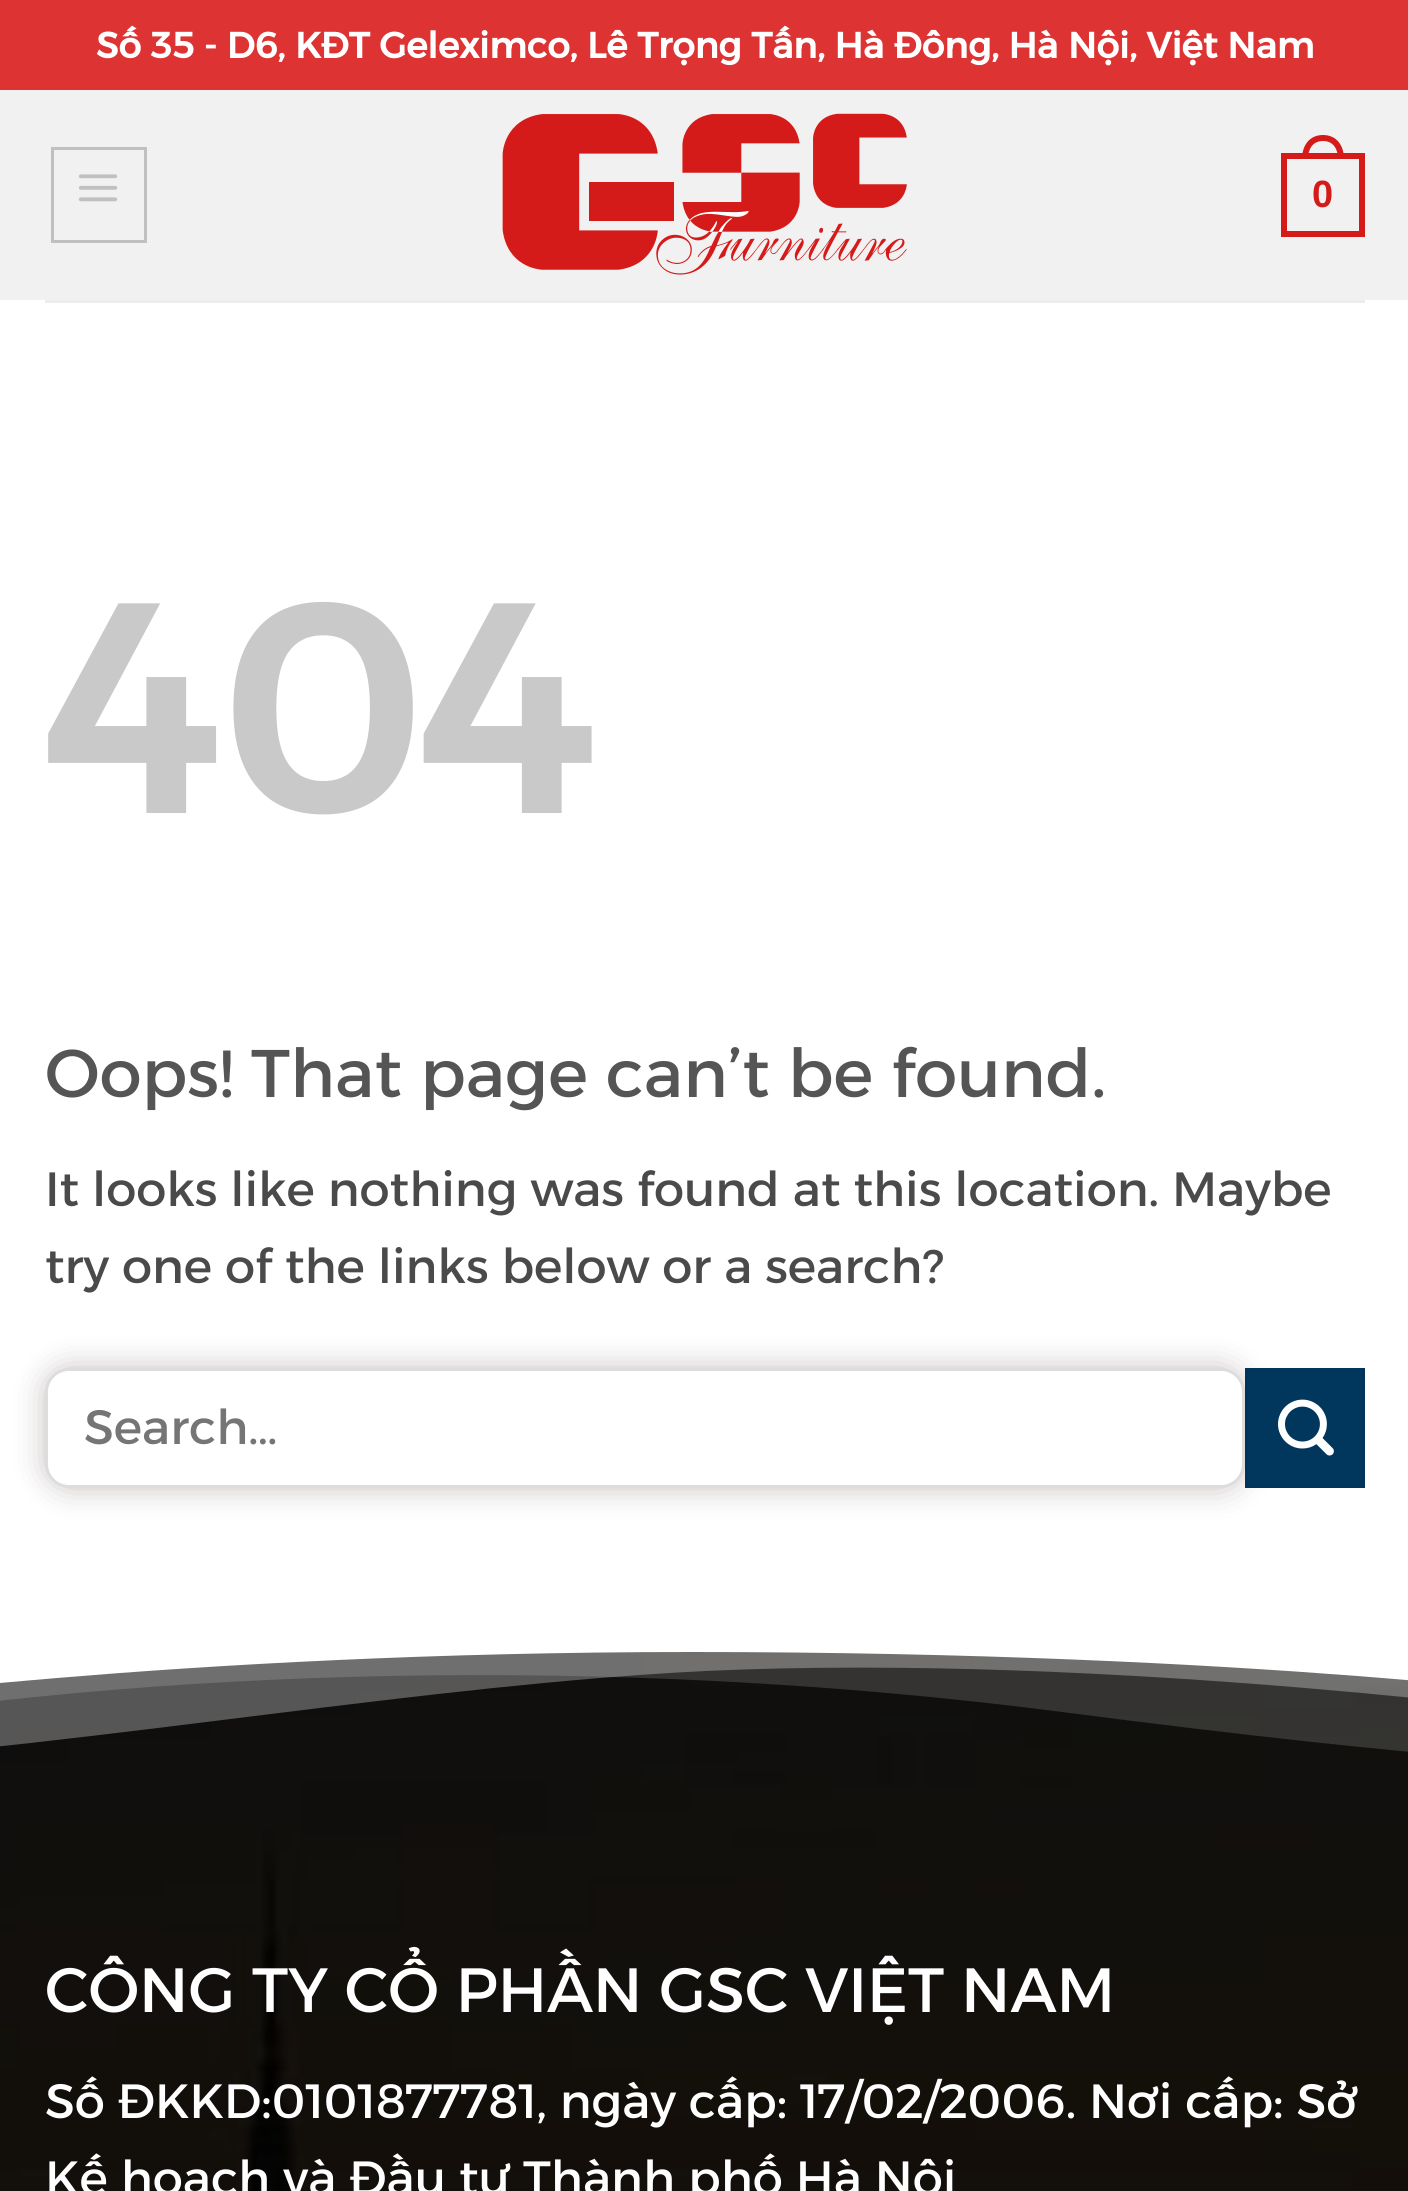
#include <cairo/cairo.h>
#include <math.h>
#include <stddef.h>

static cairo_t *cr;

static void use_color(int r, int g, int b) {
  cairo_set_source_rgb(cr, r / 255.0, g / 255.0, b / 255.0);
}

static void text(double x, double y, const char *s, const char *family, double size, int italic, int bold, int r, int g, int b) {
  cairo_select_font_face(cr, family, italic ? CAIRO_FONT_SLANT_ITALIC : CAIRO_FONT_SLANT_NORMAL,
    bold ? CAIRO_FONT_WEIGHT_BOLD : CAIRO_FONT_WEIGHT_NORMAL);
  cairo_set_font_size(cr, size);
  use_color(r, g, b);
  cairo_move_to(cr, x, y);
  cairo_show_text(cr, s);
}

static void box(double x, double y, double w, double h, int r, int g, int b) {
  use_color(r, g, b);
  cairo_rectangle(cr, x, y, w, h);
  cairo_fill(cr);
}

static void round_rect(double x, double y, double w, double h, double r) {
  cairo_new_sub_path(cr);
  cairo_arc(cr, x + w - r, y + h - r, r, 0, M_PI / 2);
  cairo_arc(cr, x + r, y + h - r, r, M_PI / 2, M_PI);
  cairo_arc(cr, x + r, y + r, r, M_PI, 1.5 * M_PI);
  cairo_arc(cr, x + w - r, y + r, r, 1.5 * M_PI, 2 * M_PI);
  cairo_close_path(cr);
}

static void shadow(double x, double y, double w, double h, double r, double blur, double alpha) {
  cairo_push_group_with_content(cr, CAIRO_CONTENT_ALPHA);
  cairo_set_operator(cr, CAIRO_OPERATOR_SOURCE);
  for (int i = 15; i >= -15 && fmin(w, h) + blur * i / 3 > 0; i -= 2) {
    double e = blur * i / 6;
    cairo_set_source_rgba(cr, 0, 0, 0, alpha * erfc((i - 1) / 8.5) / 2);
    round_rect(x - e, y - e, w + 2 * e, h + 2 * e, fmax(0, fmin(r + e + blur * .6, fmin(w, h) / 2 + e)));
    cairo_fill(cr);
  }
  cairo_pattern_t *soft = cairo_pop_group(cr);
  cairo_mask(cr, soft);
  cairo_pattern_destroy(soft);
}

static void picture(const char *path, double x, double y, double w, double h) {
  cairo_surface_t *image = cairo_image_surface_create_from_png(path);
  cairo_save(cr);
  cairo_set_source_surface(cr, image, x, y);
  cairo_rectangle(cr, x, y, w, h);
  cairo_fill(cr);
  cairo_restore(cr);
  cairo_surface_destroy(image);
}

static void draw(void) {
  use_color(255, 255, 255);
  cairo_paint(cr);
  box(0, 0, 1408, 90, 221, 51, 51);
  box(0, 90, 1408, 210, 241, 241, 241);
  cairo_rectangle(cr, 52.5, 148.5, 93, 93);
  use_color(192, 192, 192);
  cairo_set_line_width(cr, 3);
  cairo_stroke(cr);
  picture("img_01.png", 78, 174, 40, 28);
  picture("img_02.png", 502, 113, 405, 162);
  cairo_rectangle(cr, 1284, 156, 78, 78);
  use_color(212, 27, 25);
  cairo_set_line_width(cr, 6);
  cairo_stroke(cr);
  cairo_set_fill_rule(cr, CAIRO_FILL_RULE_EVEN_ODD);
  cairo_new_path(cr);
  cairo_move_to(cr, 1323, 135);
  cairo_curve_to(cr, 1337, 135, 1344, 146, 1344, 159);
  cairo_line_to(cr, 1302, 159);
  cairo_curve_to(cr, 1302, 146, 1309, 135, 1323, 135);
  cairo_close_path(cr);
  cairo_move_to(cr, 1323, 141);
  cairo_curve_to(cr, 1334, 141, 1338, 150, 1338, 159);
  cairo_line_to(cr, 1308, 159);
  cairo_curve_to(cr, 1308, 150, 1312, 141, 1323, 141);
  cairo_close_path(cr);
  cairo_fill(cr);
  box(45, 300, 1320, 3, 237, 237, 237);
  use_color(200, 192, 192);
  shadow(45, 1368, 1200, 120, 24, 15, 1);
  use_color(255, 255, 255);
  round_rect(46.5, 1369.5, 1197, 117, 22.5);
  cairo_fill_preserve(cr);
  use_color(221, 221, 221);
  cairo_set_line_width(cr, 3);
  cairo_stroke(cr);
  use_color(1, 55, 93);
  cairo_rectangle(cr, 1246.5, 1369.5, 117, 117);
  cairo_fill_preserve(cr);
  use_color(1, 52, 88);
  cairo_stroke(cr);
  picture("img_03.png", 1278, 1399, 56, 57);
  picture("img_04.png", 0, 1652, 1408, 539);
  cairo_save(cr);
  cairo_set_fill_rule(cr, CAIRO_FILL_RULE_WINDING);
  cairo_rectangle(cr, 0, 1638, 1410, 150);
  cairo_clip(cr);
  cairo_set_source_rgba(cr, 1, 1, 1, 0.15);
  cairo_new_path(cr);
  cairo_move_to(cr, 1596, 1766);
  cairo_curve_to(cr, 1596, 1766, 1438, 1761, 1062, 1712);
  cairo_curve_to(cr, 598, 1652, 145, 1671, -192, 1727);
  cairo_line_to(cr, -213, 1685);
  cairo_line_to(cr, -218, 1631);
  cairo_line_to(cr, 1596, 1631);
  cairo_close_path(cr);
  cairo_fill(cr);
  cairo_set_source_rgba(cr, 1, 1, 1, 0.3);
  cairo_new_path(cr);
  cairo_move_to(cr, 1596, 1719);
  cairo_curve_to(cr, 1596, 1719, 1113, 1652, 705, 1671);
  cairo_curve_to(cr, 425, 1685, 117, 1742, -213, 1766);
  cairo_line_to(cr, -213, 1637);
  cairo_line_to(cr, 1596, 1637);
  cairo_close_path(cr);
  cairo_fill(cr);
  use_color(255, 255, 255);
  cairo_new_path(cr);
  cairo_move_to(cr, 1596, 1700);
  cairo_curve_to(cr, 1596, 1700, 1261, 1652, 691, 1652);
  cairo_curve_to(cr, 174, 1652, -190, 1704, -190, 1704);
  cairo_line_to(cr, -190, 1637);
  cairo_line_to(cr, 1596, 1637);
  cairo_close_path(cr);
  cairo_fill(cr);
  cairo_restore(cr);
  text(96, 58, "Số 35 - D6, KĐT Geleximco, Lê Trọng Tấn, Hà Đông, Hà Nội, Việt Nam", "Alexandria", 36, 0, 1, 255, 255, 255);
  text(1312, 207, "0", "Liberation Sans", 38, 0, 1, 212, 27, 25);
  text(45, 813, "404", "Alexandria", 288, 0, 1, 201, 201, 201);
  text(45, 1097, "Oops! That page can’t be found.", "Alexandria", 67.25, 0, 0, 85, 85, 85);
  text(45, 1206, "It looks like nothing was found at this location. Maybe", "Alexandria", 48, 0, 0, 74, 74, 74);
  text(45, 1283, "try one of the links below or a search?", "Alexandria", 48, 0, 0, 74, 74, 74);
  text(84, 1444, "Search…", "Alexandria", 48, 0, 0, 117, 117, 117);
  text(45, 2012, "CÔNG TY CỔ PHẦN GSC VIỆT NAM", "Alexandria", 62.4, 0, 0, 255, 255, 255);
  text(45, 2118, "Số ĐKKD:0101877781, ngày cấp: 17/02/2006. Nơi cấp: Sở", "Alexandria", 48, 0, 0, 255, 255, 255);
  text(45, 2195, "Kế hoạch và Đầu tư Thành phố Hà Nội", "Alexandria", 48, 0, 0, 255, 255, 255);
}

int main(void) {
  cairo_surface_t *surface = cairo_image_surface_create(CAIRO_FORMAT_RGB24, 1408, 2191);
  cr = cairo_create(surface);
  cairo_font_options_t *options = cairo_font_options_create();
  cairo_font_options_set_hint_metrics(options, CAIRO_HINT_METRICS_OFF);
  cairo_font_options_set_hint_style(options, CAIRO_HINT_STYLE_NONE);
  cairo_set_font_options(cr, options);
  cairo_set_miter_limit(cr, 4);
  draw();
  cairo_surface_write_to_png(surface, "out.png");
  cairo_font_options_destroy(options);
  cairo_destroy(cr);
  cairo_surface_destroy(surface);
  return 0;
}
